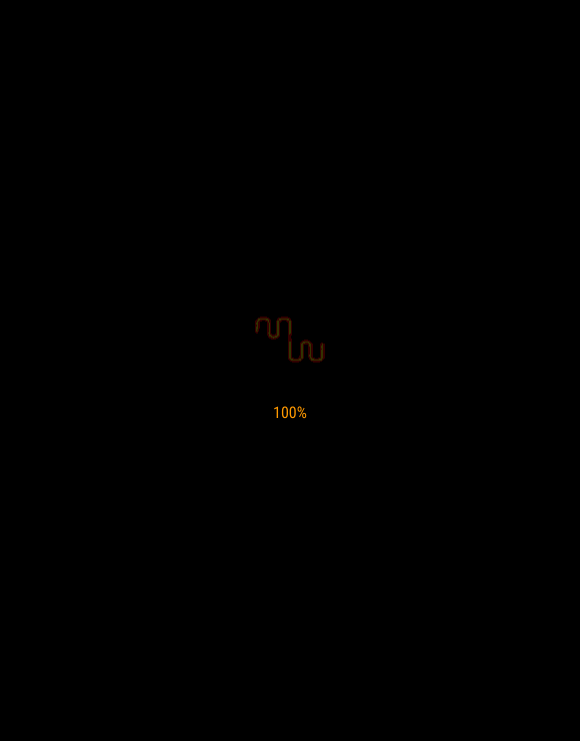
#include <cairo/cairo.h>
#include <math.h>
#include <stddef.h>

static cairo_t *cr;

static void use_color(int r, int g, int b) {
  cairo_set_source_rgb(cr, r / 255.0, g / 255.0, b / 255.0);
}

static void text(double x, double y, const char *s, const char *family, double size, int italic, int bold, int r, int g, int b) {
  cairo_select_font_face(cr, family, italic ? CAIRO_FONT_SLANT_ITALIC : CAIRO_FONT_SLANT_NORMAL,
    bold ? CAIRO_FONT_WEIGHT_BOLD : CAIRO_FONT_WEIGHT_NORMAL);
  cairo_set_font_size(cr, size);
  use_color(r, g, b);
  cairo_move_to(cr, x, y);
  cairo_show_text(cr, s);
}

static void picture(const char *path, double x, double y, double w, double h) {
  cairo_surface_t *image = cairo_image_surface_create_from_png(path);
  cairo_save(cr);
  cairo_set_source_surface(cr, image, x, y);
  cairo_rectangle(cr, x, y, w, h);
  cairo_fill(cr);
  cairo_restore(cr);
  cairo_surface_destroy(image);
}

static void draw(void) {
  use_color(0, 0, 0);
  cairo_paint(cr);
  picture("img_01.png", 255, 316, 70, 47);
  text(273, 418, "100%", "Roboto Condensed", 16, 0, 0, 255, 153, 0);
}

int main(void) {
  cairo_surface_t *surface = cairo_image_surface_create(CAIRO_FORMAT_RGB24, 580, 741);
  cr = cairo_create(surface);
  cairo_font_options_t *options = cairo_font_options_create();
  cairo_font_options_set_hint_metrics(options, CAIRO_HINT_METRICS_OFF);
  cairo_font_options_set_hint_style(options, CAIRO_HINT_STYLE_NONE);
  cairo_set_font_options(cr, options);
  cairo_set_miter_limit(cr, 4);
  draw();
  cairo_surface_write_to_png(surface, "out.png");
  cairo_font_options_destroy(options);
  cairo_destroy(cr);
  cairo_surface_destroy(surface);
  return 0;
}
